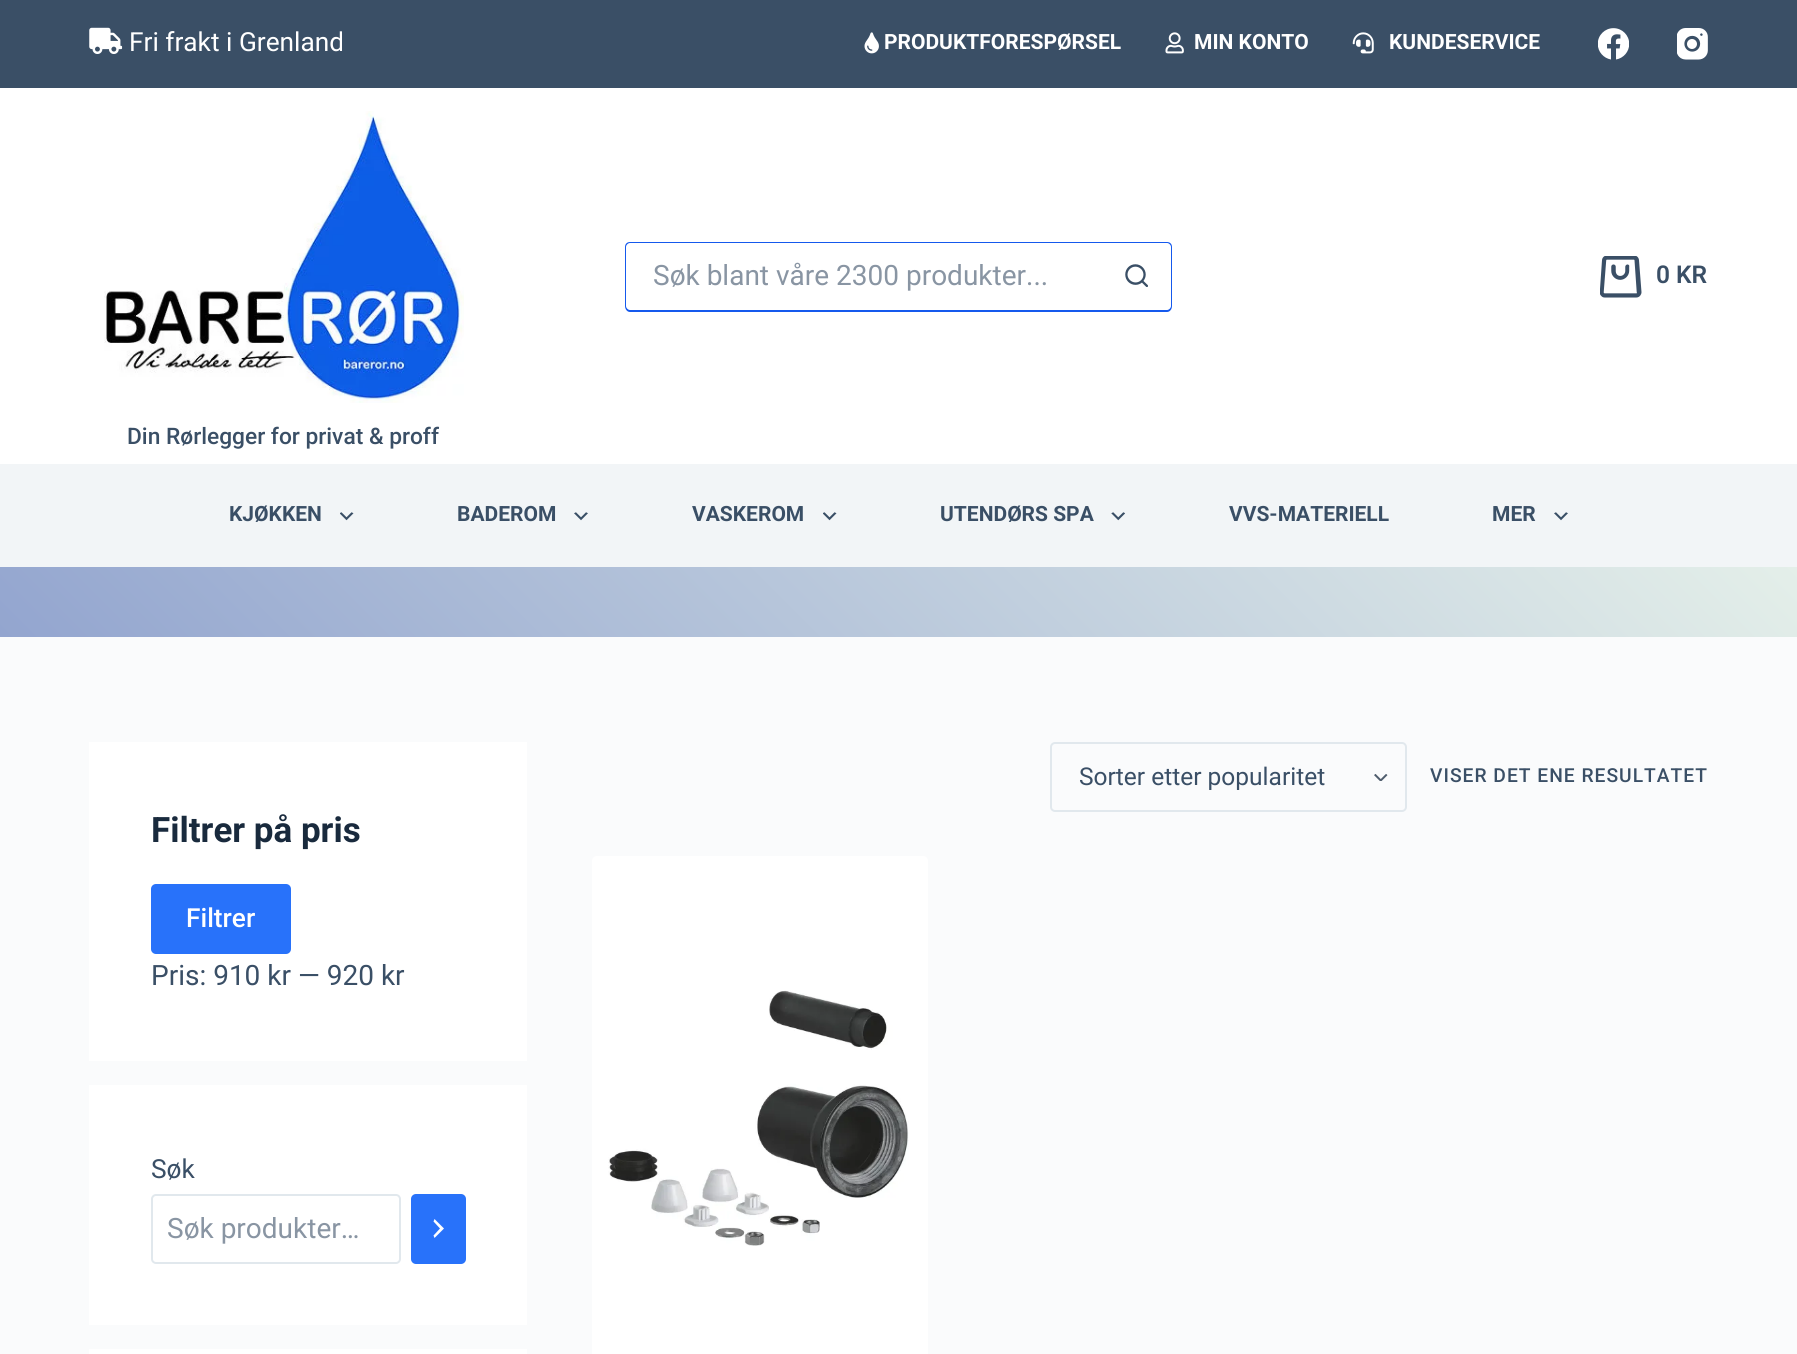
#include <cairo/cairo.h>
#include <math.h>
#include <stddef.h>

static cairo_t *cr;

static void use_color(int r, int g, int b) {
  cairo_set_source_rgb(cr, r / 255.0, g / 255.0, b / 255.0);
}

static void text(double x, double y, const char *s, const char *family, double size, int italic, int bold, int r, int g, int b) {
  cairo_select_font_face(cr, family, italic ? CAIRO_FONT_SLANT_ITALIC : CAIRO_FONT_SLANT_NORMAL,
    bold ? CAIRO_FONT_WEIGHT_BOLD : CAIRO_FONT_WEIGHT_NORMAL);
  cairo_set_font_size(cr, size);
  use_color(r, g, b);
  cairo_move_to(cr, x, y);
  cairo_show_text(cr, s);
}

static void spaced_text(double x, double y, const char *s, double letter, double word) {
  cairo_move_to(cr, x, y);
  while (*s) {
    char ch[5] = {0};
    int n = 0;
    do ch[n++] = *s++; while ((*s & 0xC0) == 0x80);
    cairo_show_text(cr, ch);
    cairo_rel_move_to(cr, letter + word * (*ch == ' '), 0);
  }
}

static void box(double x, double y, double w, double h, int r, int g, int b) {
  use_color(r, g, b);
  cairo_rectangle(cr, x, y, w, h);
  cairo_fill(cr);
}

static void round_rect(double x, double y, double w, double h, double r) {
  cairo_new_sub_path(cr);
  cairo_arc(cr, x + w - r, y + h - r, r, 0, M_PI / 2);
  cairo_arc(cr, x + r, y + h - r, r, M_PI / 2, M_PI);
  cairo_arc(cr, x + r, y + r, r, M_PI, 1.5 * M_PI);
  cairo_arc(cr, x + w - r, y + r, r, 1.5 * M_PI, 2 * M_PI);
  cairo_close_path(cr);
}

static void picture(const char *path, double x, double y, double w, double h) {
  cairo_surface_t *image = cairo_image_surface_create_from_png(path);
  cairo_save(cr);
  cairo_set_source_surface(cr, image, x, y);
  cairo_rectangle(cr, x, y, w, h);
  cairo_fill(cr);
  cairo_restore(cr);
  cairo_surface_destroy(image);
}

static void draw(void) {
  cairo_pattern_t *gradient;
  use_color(250, 251, 252);
  cairo_paint(cr);
  box(0, 0, 1797, 88, 58, 79, 102);
  picture("img_01.png", 89, 27, 34, 27);
  picture("img_02.png", 864, 32, 15, 22);
  picture("img_03.png", 1165, 32, 19, 22);
  picture("img_04.png", 1352, 32, 22, 22);
  picture("img_05.png", 1598, 28, 31, 32);
  picture("img_06.png", 1677, 28, 31, 32);
  box(0, 88, 1797, 376, 255, 255, 255);
  use_color(21, 89, 237);
  cairo_set_fill_rule(cr, CAIRO_FILL_RULE_EVEN_ODD);
  cairo_new_path(cr);
  cairo_move_to(cr, 630, 242);
  cairo_line_to(cr, 1102, 242);
  cairo_line_to(cr, 1102, 312);
  cairo_line_to(cr, 630, 312);
  cairo_curve_to(cr, 627, 312, 625, 309, 625, 306);
  cairo_line_to(cr, 625, 247);
  cairo_curve_to(cr, 625, 244, 627, 242, 630, 242);
  cairo_close_path(cr);
  cairo_move_to(cr, 630, 243);
  cairo_line_to(cr, 1102, 243);
  cairo_line_to(cr, 1102, 310);
  cairo_line_to(cr, 630, 310);
  cairo_curve_to(cr, 628, 310, 626, 308, 626, 306);
  cairo_line_to(cr, 626, 247);
  cairo_curve_to(cr, 626, 245, 628, 243, 630, 243);
  cairo_close_path(cr);
  cairo_fill(cr);
  cairo_new_path(cr);
  cairo_move_to(cr, 1102, 242);
  cairo_line_to(cr, 1167, 242);
  cairo_curve_to(cr, 1170, 242, 1172, 244, 1172, 247);
  cairo_line_to(cr, 1172, 306);
  cairo_curve_to(cr, 1172, 309, 1170, 312, 1167, 312);
  cairo_line_to(cr, 1102, 312);
  cairo_close_path(cr);
  cairo_move_to(cr, 1102, 243);
  cairo_line_to(cr, 1167, 243);
  cairo_curve_to(cr, 1169, 243, 1171, 245, 1171, 247);
  cairo_line_to(cr, 1171, 306);
  cairo_curve_to(cr, 1171, 308, 1169, 310, 1167, 310);
  cairo_line_to(cr, 1102, 310);
  cairo_close_path(cr);
  cairo_fill(cr);
  picture("img_07.png", 1125, 264, 23, 23);
  picture("img_08.png", 1600, 256, 42, 42);
  picture("img_09.png", 104, 111, 360, 292);
  box(0, 464, 1797, 103, 242, 245, 247);
  picture("img_10.png", 340, 512, 14, 9);
  picture("img_11.png", 574, 512, 14, 9);
  picture("img_10.png", 823, 512, 14, 9);
  picture("img_12.png", 1111, 512, 14, 9);
  picture("img_11.png", 1554, 512, 14, 9);
  gradient = cairo_pattern_create_linear(432, 1069, 1365, 135);
  cairo_pattern_add_color_stop_rgba(gradient, 0, 0.576, 0.647, 0.812, 1);
  cairo_pattern_add_color_stop_rgba(gradient, 1, 0.894, 0.937, 0.914, 1);
  cairo_set_source(cr, gradient);
  cairo_pattern_destroy(gradient);
  cairo_rectangle(cr, 0, 567, 1797, 70);
  cairo_fill(cr);
  picture("img_13.png", 1374, 774, 14, 7);
  round_rect(1051, 743, 355, 68, 4);
  use_color(225, 232, 237);
  cairo_stroke(cr);
  use_color(255, 255, 255);
  round_rect(592, 856, 336, 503, 5);
  cairo_fill(cr);
  picture("img_14.png", 608, 990, 301, 256);
  box(89, 742, 438, 319, 255, 255, 255);
  use_color(40, 114, 250);
  round_rect(151, 884, 140, 70, 5);
  cairo_fill(cr);
  box(89, 1085, 438, 240, 255, 255, 255);
  round_rect(152, 1195, 248, 68, 4);
  use_color(225, 232, 237);
  cairo_stroke(cr);
  use_color(40, 114, 250);
  round_rect(411, 1194, 55, 70, 5);
  cairo_fill(cr);
  use_color(255, 255, 255);
  cairo_set_fill_rule(cr, CAIRO_FILL_RULE_WINDING);
  cairo_new_path(cr);
  cairo_move_to(cr, 433.5, 1235.5);
  cairo_line_to(cr, 440, 1228.5);
  cairo_line_to(cr, 433.5, 1221.5);
  cairo_line_to(cr, 434.5, 1219);
  cairo_line_to(cr, 444, 1228.5);
  cairo_line_to(cr, 434.5, 1238);
  cairo_close_path(cr);
  cairo_fill(cr);
  box(89, 1349, 438, 5, 255, 255, 255);
  text(129, 51, "Fri frakt i Grenland", "Roboto", 26.25, 0, 0, 255, 255, 255);
  text(884, 49, "PRODUKTFORESPØRSEL", "Roboto", 21, 0, 1, 255, 255, 255);
  text(1194, 49, "MIN KONTO", "Roboto", 21, 0, 1, 255, 255, 255);
  text(1389, 49, "KUNDESERVICE", "Roboto", 21, 0, 1, 255, 255, 255);
  text(653, 285, "Søk blant våre 2300 produkter...", "Roboto", 28, 0, 0, 137, 149, 163);
  text(1656, 283, "0 KR", "Roboto SemiBold", 24.5, 0, 0, 58, 79, 102);
  text(127, 444, "Din Rørlegger for privat & proff", "Roboto Medium", 22.75, 0, 0, 58, 79, 102);
  text(229, 521, "KJØKKEN", "Roboto", 21, 0, 1, 58, 79, 102);
  text(457, 521, "BADEROM", "Roboto", 21, 0, 1, 58, 79, 102);
  text(692, 521, "VASKEROM", "Roboto", 21, 0, 1, 58, 79, 102);
  text(940, 521, "UTENDØRS SPA", "Roboto", 21, 0, 1, 58, 79, 102);
  text(1229, 521, "VVS-MATERIELL", "Roboto", 21, 0, 1, 58, 79, 102);
  text(1492, 521, "MER", "Roboto", 21, 0, 1, 58, 79, 102);
  text(1079, 785, "Sorter etter popularitet", "Roboto", 24.5, 0, 0, 58, 79, 102);
  cairo_select_font_face(cr, "Roboto Medium", CAIRO_FONT_SLANT_NORMAL, CAIRO_FONT_WEIGHT_NORMAL);
  cairo_set_font_size(cr, 19.25);
  spaced_text(1430, 782, "VISER DET ENE RESULTATET", 1, 0);
  text(151, 842, "Filtrer på pris", "Roboto", 35, 0, 1, 25, 42, 61);
  text(186, 927, "Filtrer", "Roboto Medium", 26.25, 0, 0, 255, 255, 255);
  text(151, 985, "Pris: 910 kr — 920 kr", "Roboto", 28, 0, 0, 58, 79, 102);
  text(151, 1178, "Søk", "Roboto", 26.25, 0, 0, 58, 79, 102);
  text(167, 1238, "Søk produkter…", "Roboto", 28, 0, 0, 137, 149, 163);
}

int main(void) {
  cairo_surface_t *surface = cairo_image_surface_create(CAIRO_FORMAT_RGB24, 1797, 1354);
  cr = cairo_create(surface);
  cairo_font_options_t *options = cairo_font_options_create();
  cairo_font_options_set_hint_metrics(options, CAIRO_HINT_METRICS_OFF);
  cairo_font_options_set_hint_style(options, CAIRO_HINT_STYLE_NONE);
  cairo_set_font_options(cr, options);
  cairo_set_miter_limit(cr, 4);
  draw();
  cairo_surface_write_to_png(surface, "out.png");
  cairo_font_options_destroy(options);
  cairo_destroy(cr);
  cairo_surface_destroy(surface);
  return 0;
}
